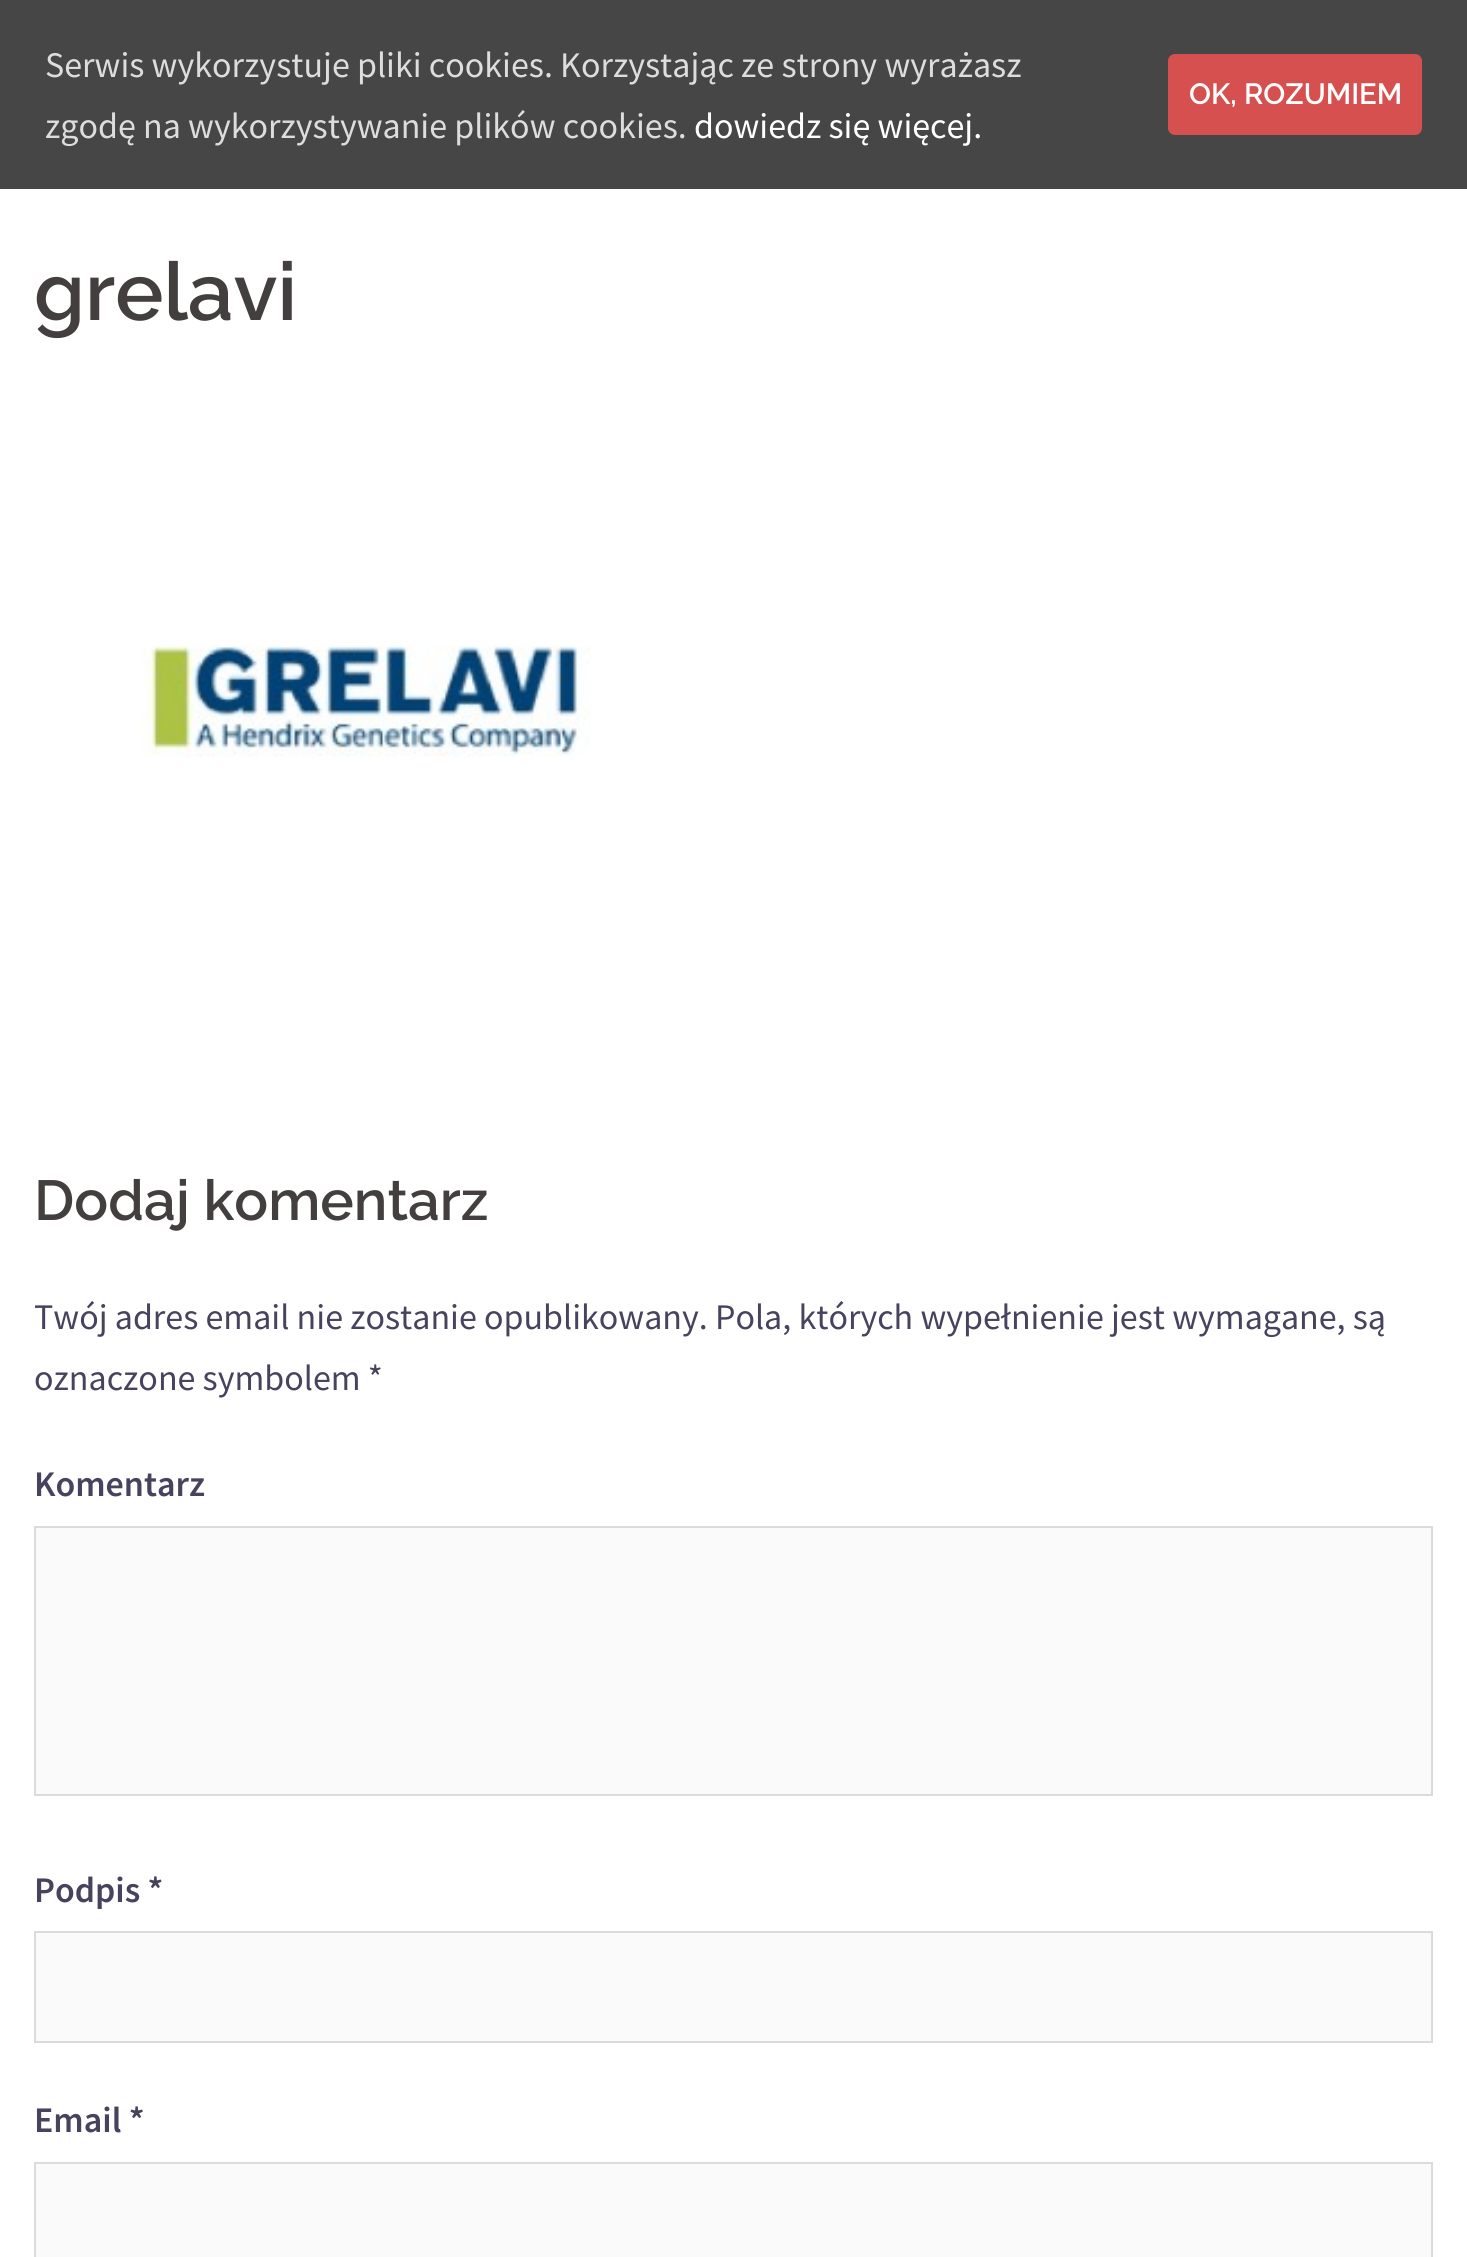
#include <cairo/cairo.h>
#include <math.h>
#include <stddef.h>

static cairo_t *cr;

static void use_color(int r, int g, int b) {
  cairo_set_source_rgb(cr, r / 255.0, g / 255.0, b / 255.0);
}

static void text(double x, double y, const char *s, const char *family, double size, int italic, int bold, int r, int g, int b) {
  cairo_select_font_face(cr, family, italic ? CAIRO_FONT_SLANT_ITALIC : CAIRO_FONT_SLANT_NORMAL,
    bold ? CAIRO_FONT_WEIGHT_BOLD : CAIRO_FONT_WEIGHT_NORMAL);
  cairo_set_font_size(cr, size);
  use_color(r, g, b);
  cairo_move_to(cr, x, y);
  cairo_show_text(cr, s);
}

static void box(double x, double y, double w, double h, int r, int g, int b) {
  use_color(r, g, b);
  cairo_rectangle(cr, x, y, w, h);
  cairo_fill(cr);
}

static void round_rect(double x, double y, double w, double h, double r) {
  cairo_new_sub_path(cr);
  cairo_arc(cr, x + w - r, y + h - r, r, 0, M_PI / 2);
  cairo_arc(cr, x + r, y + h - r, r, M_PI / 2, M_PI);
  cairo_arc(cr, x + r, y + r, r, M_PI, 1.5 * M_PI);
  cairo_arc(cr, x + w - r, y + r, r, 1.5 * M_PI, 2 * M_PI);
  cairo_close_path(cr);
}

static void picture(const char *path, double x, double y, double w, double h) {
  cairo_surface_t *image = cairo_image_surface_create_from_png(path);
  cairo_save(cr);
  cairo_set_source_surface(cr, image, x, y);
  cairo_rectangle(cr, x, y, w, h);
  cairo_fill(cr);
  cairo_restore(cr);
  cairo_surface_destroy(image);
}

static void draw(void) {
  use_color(255, 255, 255);
  cairo_paint(cr);
  box(0, 0, 1467, 189, 70, 70, 70);
  use_color(214, 80, 80);
  round_rect(1168, 54, 254, 81, 7);
  cairo_fill(cr);
  picture("img_01.png", 141, 645, 450, 112);
  use_color(250, 250, 250);
  cairo_rectangle(cr, 35, 1527, 1397, 268);
  cairo_fill_preserve(cr);
  use_color(219, 219, 219);
  cairo_stroke(cr);
  use_color(250, 250, 250);
  cairo_rectangle(cr, 35, 1932, 1397, 110);
  cairo_fill_preserve(cr);
  use_color(219, 219, 219);
  cairo_stroke(cr);
  use_color(250, 250, 250);
  cairo_rectangle(cr, 35, 2163, 1397, 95);
  cairo_fill_preserve(cr);
  use_color(219, 219, 219);
  cairo_stroke(cr);
  text(45, 77, "Serwis wykorzystuje pliki cookies. Korzystając ze strony wyrażasz", "Source Sans Pro", 36, 0, 0, 221, 221, 221);
  text(45, 138, "zgodę na wykorzystywanie plików cookies.", "Source Sans Pro", 36, 0, 0, 221, 221, 221);
  text(694, 138, "dowiedz się więcej.", "Source Sans Pro", 36, 0, 0, 255, 255, 255);
  text(1189, 104, "OK, ROZUMIEM", "Raleway SemiBold", 29.25, 0, 0, 255, 255, 255);
  text(34, 320, "grelavi", "Raleway SemiBold", 81, 0, 0, 68, 63, 63);
  text(34, 1220, "Dodaj komentarz", "Raleway SemiBold", 56.25, 0, 0, 68, 63, 63);
  text(34, 1329, "Twój adres email nie zostanie opublikowany. Pola, których wypełnienie jest wymagane, są", "Source Sans Pro", 36, 0, 0, 71, 66, 93);
  text(34, 1390, "oznaczone symbolem *", "Source Sans Pro", 36, 0, 0, 71, 66, 93);
  text(34, 1496, "Komentarz", "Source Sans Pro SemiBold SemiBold", 36, 0, 0, 71, 66, 93);
  text(34, 1902, "Podpis *", "Source Sans Pro SemiBold SemiBold", 36, 0, 0, 71, 66, 93);
  text(34, 2132, "Email *", "Source Sans Pro SemiBold SemiBold", 36, 0, 0, 71, 66, 93);
}

int main(void) {
  cairo_surface_t *surface = cairo_image_surface_create(CAIRO_FORMAT_RGB24, 1467, 2257);
  cr = cairo_create(surface);
  cairo_font_options_t *options = cairo_font_options_create();
  cairo_font_options_set_hint_metrics(options, CAIRO_HINT_METRICS_OFF);
  cairo_font_options_set_hint_style(options, CAIRO_HINT_STYLE_NONE);
  cairo_set_font_options(cr, options);
  cairo_set_miter_limit(cr, 4);
  draw();
  cairo_surface_write_to_png(surface, "out.png");
  cairo_font_options_destroy(options);
  cairo_destroy(cr);
  cairo_surface_destroy(surface);
  return 0;
}
